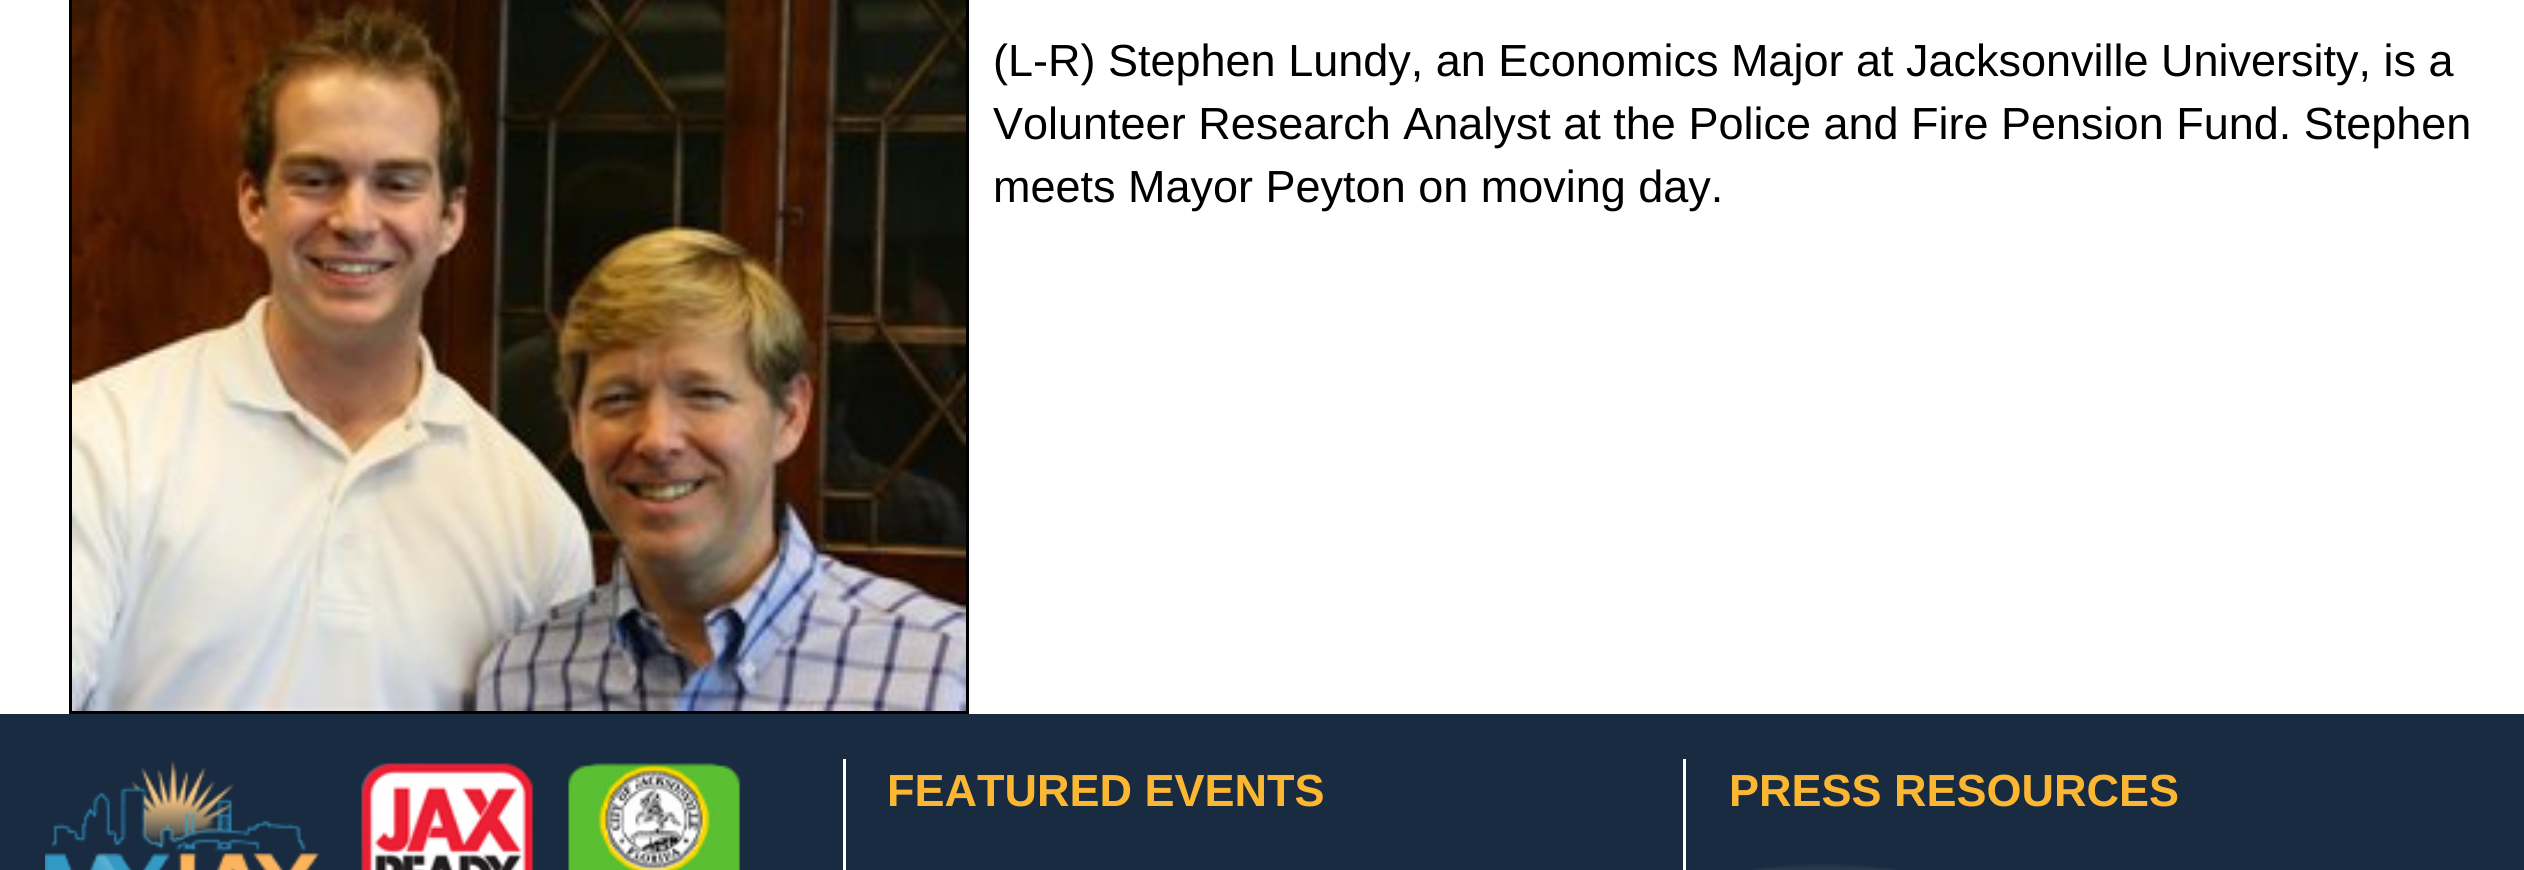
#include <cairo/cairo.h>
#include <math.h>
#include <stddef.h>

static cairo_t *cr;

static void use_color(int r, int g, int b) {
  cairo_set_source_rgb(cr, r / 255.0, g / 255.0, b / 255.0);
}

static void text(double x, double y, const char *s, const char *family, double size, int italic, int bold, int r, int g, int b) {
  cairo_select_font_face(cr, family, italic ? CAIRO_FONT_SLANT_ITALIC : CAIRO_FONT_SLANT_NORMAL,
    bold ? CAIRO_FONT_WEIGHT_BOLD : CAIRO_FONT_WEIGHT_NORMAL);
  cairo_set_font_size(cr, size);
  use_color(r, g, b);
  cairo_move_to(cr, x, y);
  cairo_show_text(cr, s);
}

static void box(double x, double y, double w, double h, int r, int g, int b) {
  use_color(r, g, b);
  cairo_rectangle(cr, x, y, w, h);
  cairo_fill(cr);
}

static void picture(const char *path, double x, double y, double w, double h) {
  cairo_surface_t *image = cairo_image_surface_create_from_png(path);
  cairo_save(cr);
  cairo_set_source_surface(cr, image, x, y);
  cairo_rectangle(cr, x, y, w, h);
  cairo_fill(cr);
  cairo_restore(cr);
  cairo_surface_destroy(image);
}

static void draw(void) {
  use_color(255, 255, 255);
  cairo_paint(cr);
  cairo_rectangle(cr, 70.5, -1.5, 897, 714);
  use_color(0, 0, 0);
  cairo_set_line_width(cr, 3);
  cairo_stroke(cr);
  picture("img_01.png", 72, 0, 894, 711);
  box(0, 714, 2524, 156, 25, 43, 65);
  picture("img_02.png", 45, 760, 275, 110);
  picture("img_03.png", 361, 763, 173, 107);
  picture("img_04.png", 568, 763, 173, 107);
  box(843, 759, 3, 111, 255, 255, 255);
  box(1683, 759, 3, 111, 255, 255, 255);
  picture("img_05.png", 1753, 864, 142, 6);
  text(993, 76, "(L-R) Stephen Lundy, an Economics Major at Jacksonville University, is a", "Liberation Sans", 45, 0, 0, 0, 0, 0);
  text(993, 139, "Volunteer Research Analyst at the Police and Fire Pension Fund. Stephen", "Liberation Sans", 45, 0, 0, 0, 0, 0);
  text(993, 202, "meets Mayor Peyton on moving day.", "Liberation Sans", 45, 0, 0, 0, 0, 0);
  text(887, 806, "FEATURED EVENTS", "Liberation Sans", 45, 0, 1, 251, 183, 50);
  text(1729, 806, "PRESS RESOURCES", "Liberation Sans", 45, 0, 1, 251, 183, 50);
}

int main(void) {
  cairo_surface_t *surface = cairo_image_surface_create(CAIRO_FORMAT_RGB24, 2524, 870);
  cr = cairo_create(surface);
  cairo_font_options_t *options = cairo_font_options_create();
  cairo_font_options_set_hint_metrics(options, CAIRO_HINT_METRICS_OFF);
  cairo_font_options_set_hint_style(options, CAIRO_HINT_STYLE_NONE);
  cairo_set_font_options(cr, options);
  cairo_set_miter_limit(cr, 4);
  draw();
  cairo_surface_write_to_png(surface, "out.png");
  cairo_font_options_destroy(options);
  cairo_destroy(cr);
  cairo_surface_destroy(surface);
  return 0;
}
